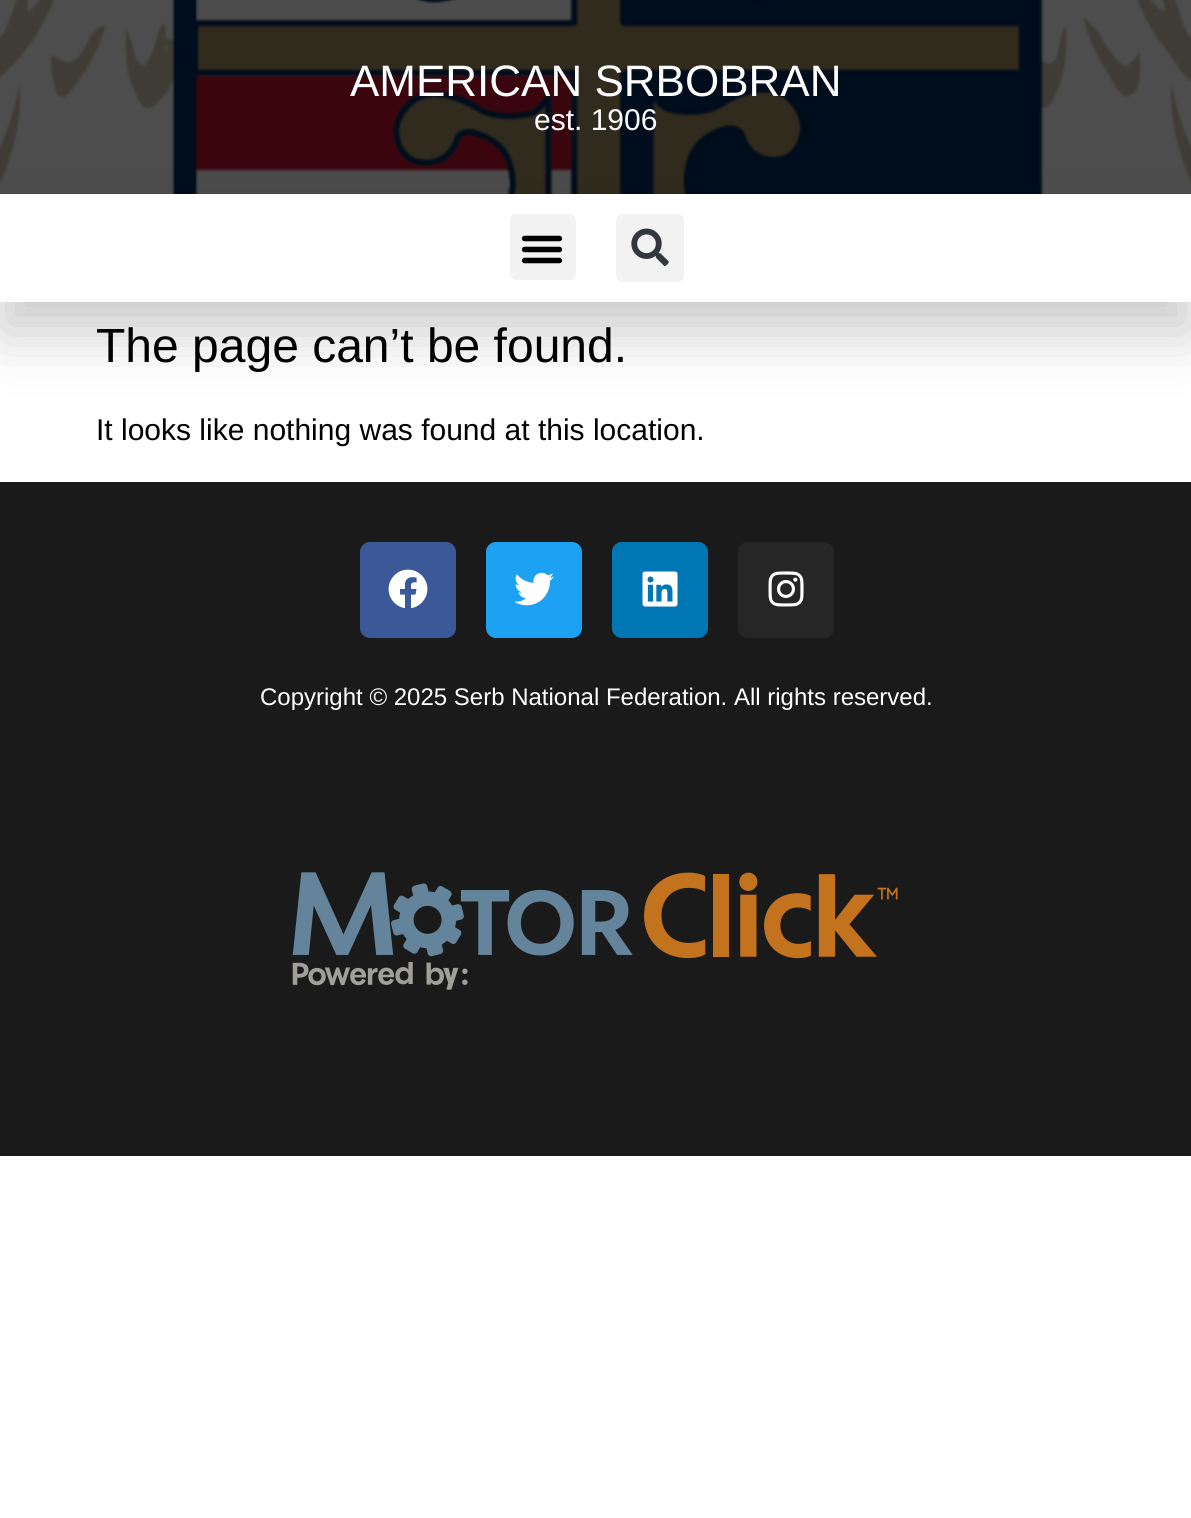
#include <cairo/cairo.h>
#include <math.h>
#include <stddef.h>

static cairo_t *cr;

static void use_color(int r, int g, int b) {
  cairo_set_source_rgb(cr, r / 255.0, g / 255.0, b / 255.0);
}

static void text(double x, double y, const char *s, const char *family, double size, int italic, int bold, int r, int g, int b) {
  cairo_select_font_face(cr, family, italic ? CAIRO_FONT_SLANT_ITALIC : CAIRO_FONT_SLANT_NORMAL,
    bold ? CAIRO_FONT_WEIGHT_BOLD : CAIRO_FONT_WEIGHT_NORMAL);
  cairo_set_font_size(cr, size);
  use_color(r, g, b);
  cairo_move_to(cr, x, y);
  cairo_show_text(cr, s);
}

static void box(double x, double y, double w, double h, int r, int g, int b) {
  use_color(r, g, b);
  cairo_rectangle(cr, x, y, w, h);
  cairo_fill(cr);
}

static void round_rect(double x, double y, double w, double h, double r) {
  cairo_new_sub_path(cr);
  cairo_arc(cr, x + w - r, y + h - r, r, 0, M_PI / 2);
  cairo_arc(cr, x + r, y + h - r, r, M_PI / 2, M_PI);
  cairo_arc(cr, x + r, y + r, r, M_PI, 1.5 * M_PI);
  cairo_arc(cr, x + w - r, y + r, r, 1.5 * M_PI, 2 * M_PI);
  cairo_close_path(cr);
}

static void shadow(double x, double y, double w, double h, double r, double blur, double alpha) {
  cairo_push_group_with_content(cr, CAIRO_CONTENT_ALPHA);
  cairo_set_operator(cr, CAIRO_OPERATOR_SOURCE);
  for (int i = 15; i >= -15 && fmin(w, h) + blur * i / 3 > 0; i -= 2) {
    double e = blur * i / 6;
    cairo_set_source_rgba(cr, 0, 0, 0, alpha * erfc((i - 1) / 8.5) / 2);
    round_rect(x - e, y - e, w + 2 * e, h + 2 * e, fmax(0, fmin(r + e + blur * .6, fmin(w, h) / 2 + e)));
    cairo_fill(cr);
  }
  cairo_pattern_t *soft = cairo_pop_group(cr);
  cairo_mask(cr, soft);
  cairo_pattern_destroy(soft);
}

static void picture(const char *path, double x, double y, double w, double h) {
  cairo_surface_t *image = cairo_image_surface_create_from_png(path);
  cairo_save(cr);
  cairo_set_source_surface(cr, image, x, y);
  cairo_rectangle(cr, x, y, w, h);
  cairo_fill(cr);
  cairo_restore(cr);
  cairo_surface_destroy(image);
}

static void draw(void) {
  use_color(255, 255, 255);
  cairo_paint(cr);
  box(0, 0, 1191, 194, 77, 77, 77);
  picture("img_01.png", 0, 0, 1191, 194);
  cairo_save(cr);
  cairo_set_fill_rule(cr, CAIRO_FILL_RULE_EVEN_ODD);
  cairo_new_path(cr);
  cairo_move_to(cr, 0, 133);
  cairo_line_to(cr, 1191, 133);
  cairo_line_to(cr, 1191, 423);
  cairo_line_to(cr, 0, 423);
  cairo_close_path(cr);
  cairo_move_to(cr, 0, 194);
  cairo_line_to(cr, 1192, 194);
  cairo_line_to(cr, 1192, 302);
  cairo_line_to(cr, 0, 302);
  cairo_close_path(cr);
  cairo_clip(cr);
  use_color(0, 0, 0);
  shadow(0, 224, 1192, 108, 0, 30, 0.21);
  cairo_restore(cr);
  use_color(242, 242, 242);
  round_rect(510, 214, 66, 66, 6);
  cairo_fill(cr);
  picture("img_02.png", 521, 235, 42, 29);
  round_rect(616, 214, 68, 68, 6);
  cairo_fill(cr);
  picture("img_03.png", 631, 228, 38, 38);
  box(0, 482, 1191, 674, 26, 26, 26);
  use_color(59, 89, 152);
  round_rect(360, 542, 96, 96, 10);
  cairo_fill(cr);
  picture("img_04.png", 388, 569, 40, 40);
  use_color(29, 161, 242);
  round_rect(486, 542, 96, 96, 10);
  cairo_fill(cr);
  picture("img_05.png", 514, 572, 40, 34);
  use_color(0, 119, 181);
  round_rect(612, 542, 96, 96, 10);
  cairo_fill(cr);
  picture("img_06.png", 642, 571, 36, 36);
  use_color(38, 38, 38);
  round_rect(738, 542, 96, 96, 10);
  cairo_fill(cr);
  picture("img_07.png", 768, 571, 36, 36);
  picture("img_08.png", 292, 872, 606, 118);
  text(350, 96, "AMERICAN SRBOBRAN", "Liberation Sans", 44, 0, 0, 255, 255, 255);
  text(534, 130, "est. 1906", "Liberation Sans", 30, 0, 0, 255, 255, 255);
  text(96, 362, "The page can’t be found.", "Liberation Sans", 48, 0, 0, 0, 0, 0);
  text(96, 440, "It looks like nothing was found at this location.", "Liberation Sans", 30, 0, 0, 0, 0, 0);
  text(260, 705, "Copyright © 2025 Serb National Federation. All rights reserved.", "Liberation Sans", 24, 0, 0, 255, 255, 255);
}

int main(void) {
  cairo_surface_t *surface = cairo_image_surface_create(CAIRO_FORMAT_RGB24, 1191, 1518);
  cr = cairo_create(surface);
  cairo_font_options_t *options = cairo_font_options_create();
  cairo_font_options_set_hint_metrics(options, CAIRO_HINT_METRICS_OFF);
  cairo_font_options_set_hint_style(options, CAIRO_HINT_STYLE_NONE);
  cairo_set_font_options(cr, options);
  cairo_set_miter_limit(cr, 4);
  draw();
  cairo_surface_write_to_png(surface, "out.png");
  cairo_font_options_destroy(options);
  cairo_destroy(cr);
  cairo_surface_destroy(surface);
  return 0;
}
